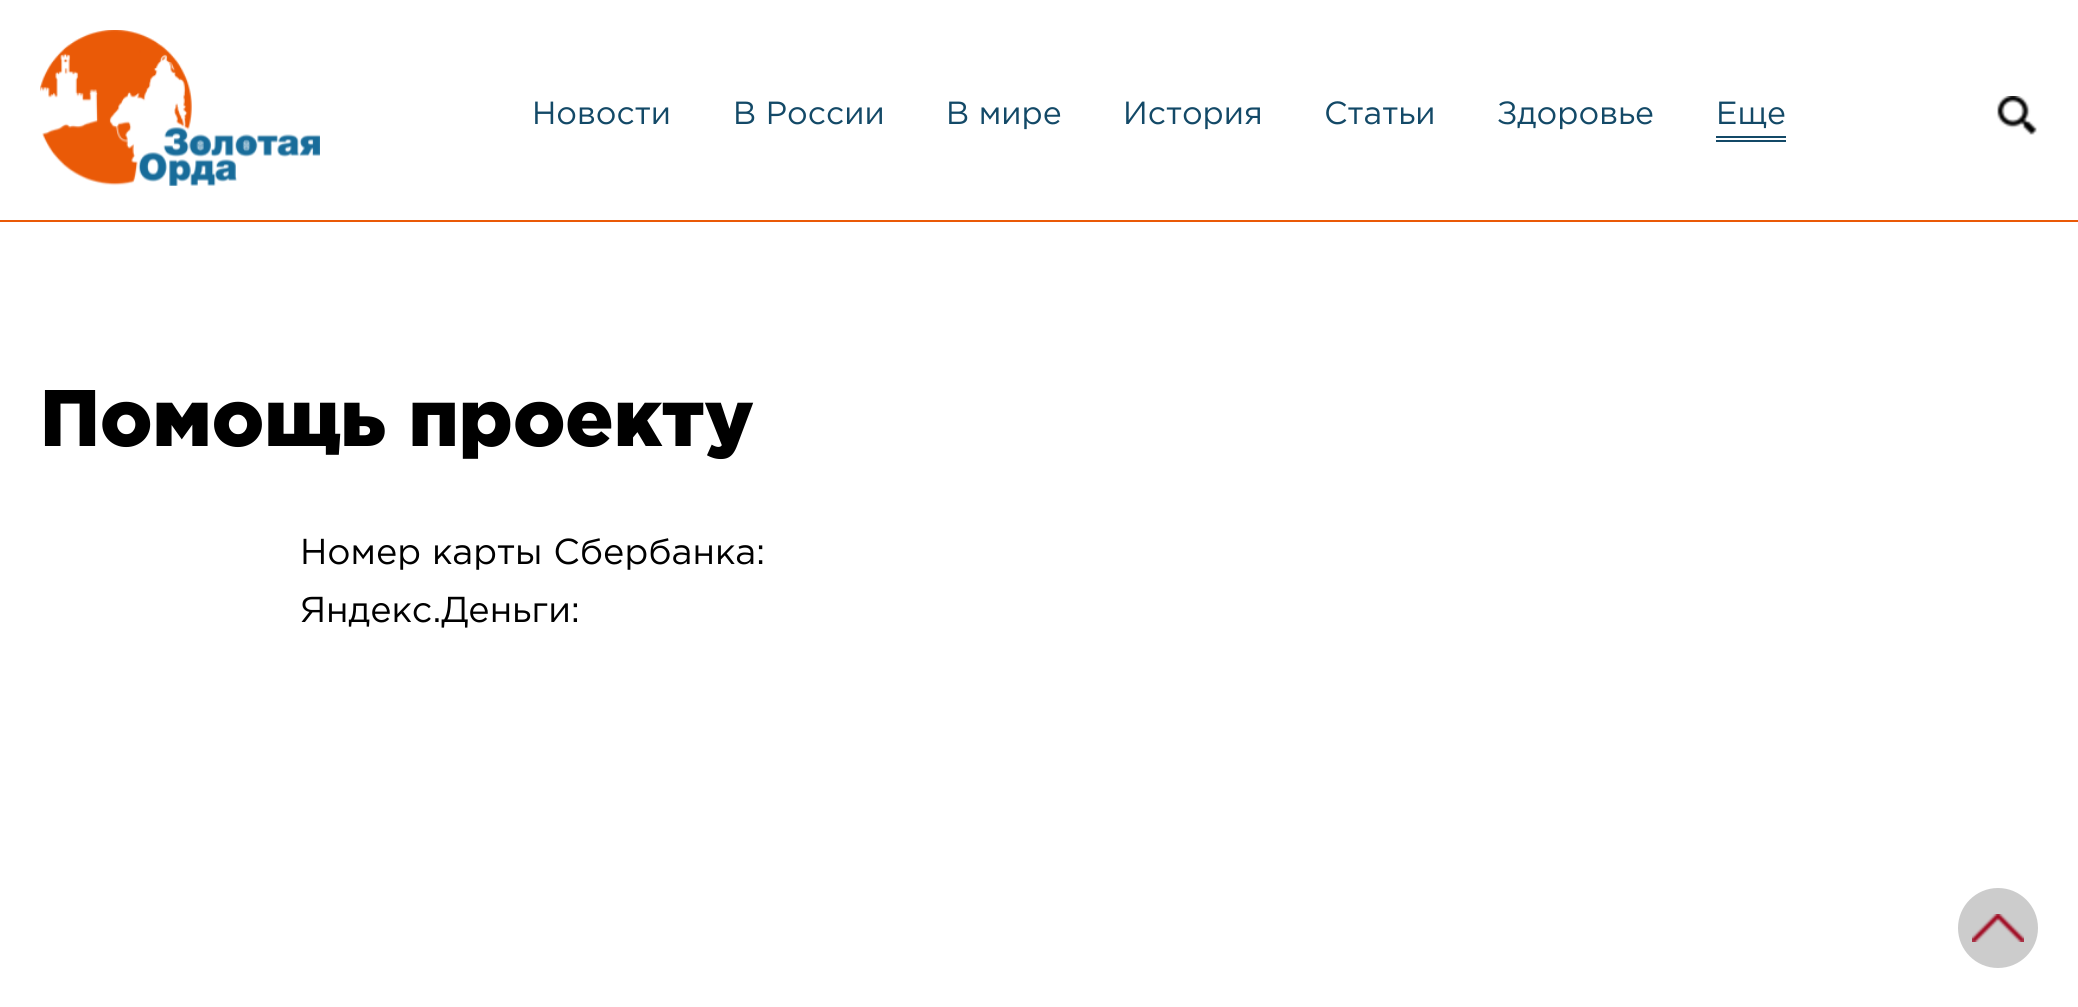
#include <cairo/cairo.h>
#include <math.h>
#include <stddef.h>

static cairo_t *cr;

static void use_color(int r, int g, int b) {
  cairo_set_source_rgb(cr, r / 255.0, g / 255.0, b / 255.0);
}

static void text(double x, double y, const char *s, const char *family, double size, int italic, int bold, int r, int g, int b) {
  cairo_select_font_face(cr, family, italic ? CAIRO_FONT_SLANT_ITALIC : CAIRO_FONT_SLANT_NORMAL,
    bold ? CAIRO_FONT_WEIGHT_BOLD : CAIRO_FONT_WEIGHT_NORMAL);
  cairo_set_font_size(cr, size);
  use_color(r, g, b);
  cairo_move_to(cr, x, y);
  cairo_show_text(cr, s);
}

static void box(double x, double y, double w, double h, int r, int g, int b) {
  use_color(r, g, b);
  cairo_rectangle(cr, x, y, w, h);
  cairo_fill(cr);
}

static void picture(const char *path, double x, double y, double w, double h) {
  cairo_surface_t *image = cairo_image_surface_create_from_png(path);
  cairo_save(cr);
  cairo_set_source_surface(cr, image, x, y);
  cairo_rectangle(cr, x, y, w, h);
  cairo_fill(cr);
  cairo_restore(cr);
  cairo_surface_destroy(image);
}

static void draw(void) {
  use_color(255, 255, 255);
  cairo_paint(cr);
  box(0, 220, 2078, 2, 234, 89, 6);
  picture("img_01.png", 40, 30, 280, 156);
  box(1716, 136, 70, 2, 19, 73, 103);
  box(1716, 140, 70, 2, 19, 73, 103);
  picture("img_02.png", 1997, 96, 40, 39);
  use_color(204, 204, 204);
  cairo_arc(cr, 1998, 928, 40, 0, 2 * M_PI);
  cairo_fill(cr);
  picture("img_03.png", 1972, 914, 52, 28);
  text(532, 124, "Новости", "Gotham", 32, 0, 0, 19, 73, 103);
  text(733, 124, "В России", "Gotham", 32, 0, 0, 19, 73, 103);
  text(946, 124, "В мире", "Gotham", 32, 0, 0, 19, 73, 103);
  text(1123, 124, "История", "Gotham", 32, 0, 0, 19, 73, 103);
  text(1324, 124, "Статьи", "Gotham", 32, 0, 0, 19, 73, 103);
  text(1497, 124, "Здоровье", "Gotham", 32, 0, 0, 19, 73, 103);
  text(1716, 124, "Еще", "Gotham", 32, 0, 0, 19, 73, 103);
  text(40, 446, "Помощь проекту", "Gotham Black", 80, 0, 0, 0, 0, 0);
  text(300, 564, "Номер карты Сбербанка:", "Gotham", 36, 0, 0, 0, 0, 0);
  text(300, 622, "Яндекс.Деньги:", "Gotham", 36, 0, 0, 0, 0, 0);
}

int main(void) {
  cairo_surface_t *surface = cairo_image_surface_create(CAIRO_FORMAT_RGB24, 2078, 1007);
  cr = cairo_create(surface);
  cairo_font_options_t *options = cairo_font_options_create();
  cairo_font_options_set_hint_metrics(options, CAIRO_HINT_METRICS_OFF);
  cairo_font_options_set_hint_style(options, CAIRO_HINT_STYLE_NONE);
  cairo_set_font_options(cr, options);
  cairo_set_miter_limit(cr, 4);
  draw();
  cairo_surface_write_to_png(surface, "out.png");
  cairo_font_options_destroy(options);
  cairo_destroy(cr);
  cairo_surface_destroy(surface);
  return 0;
}
